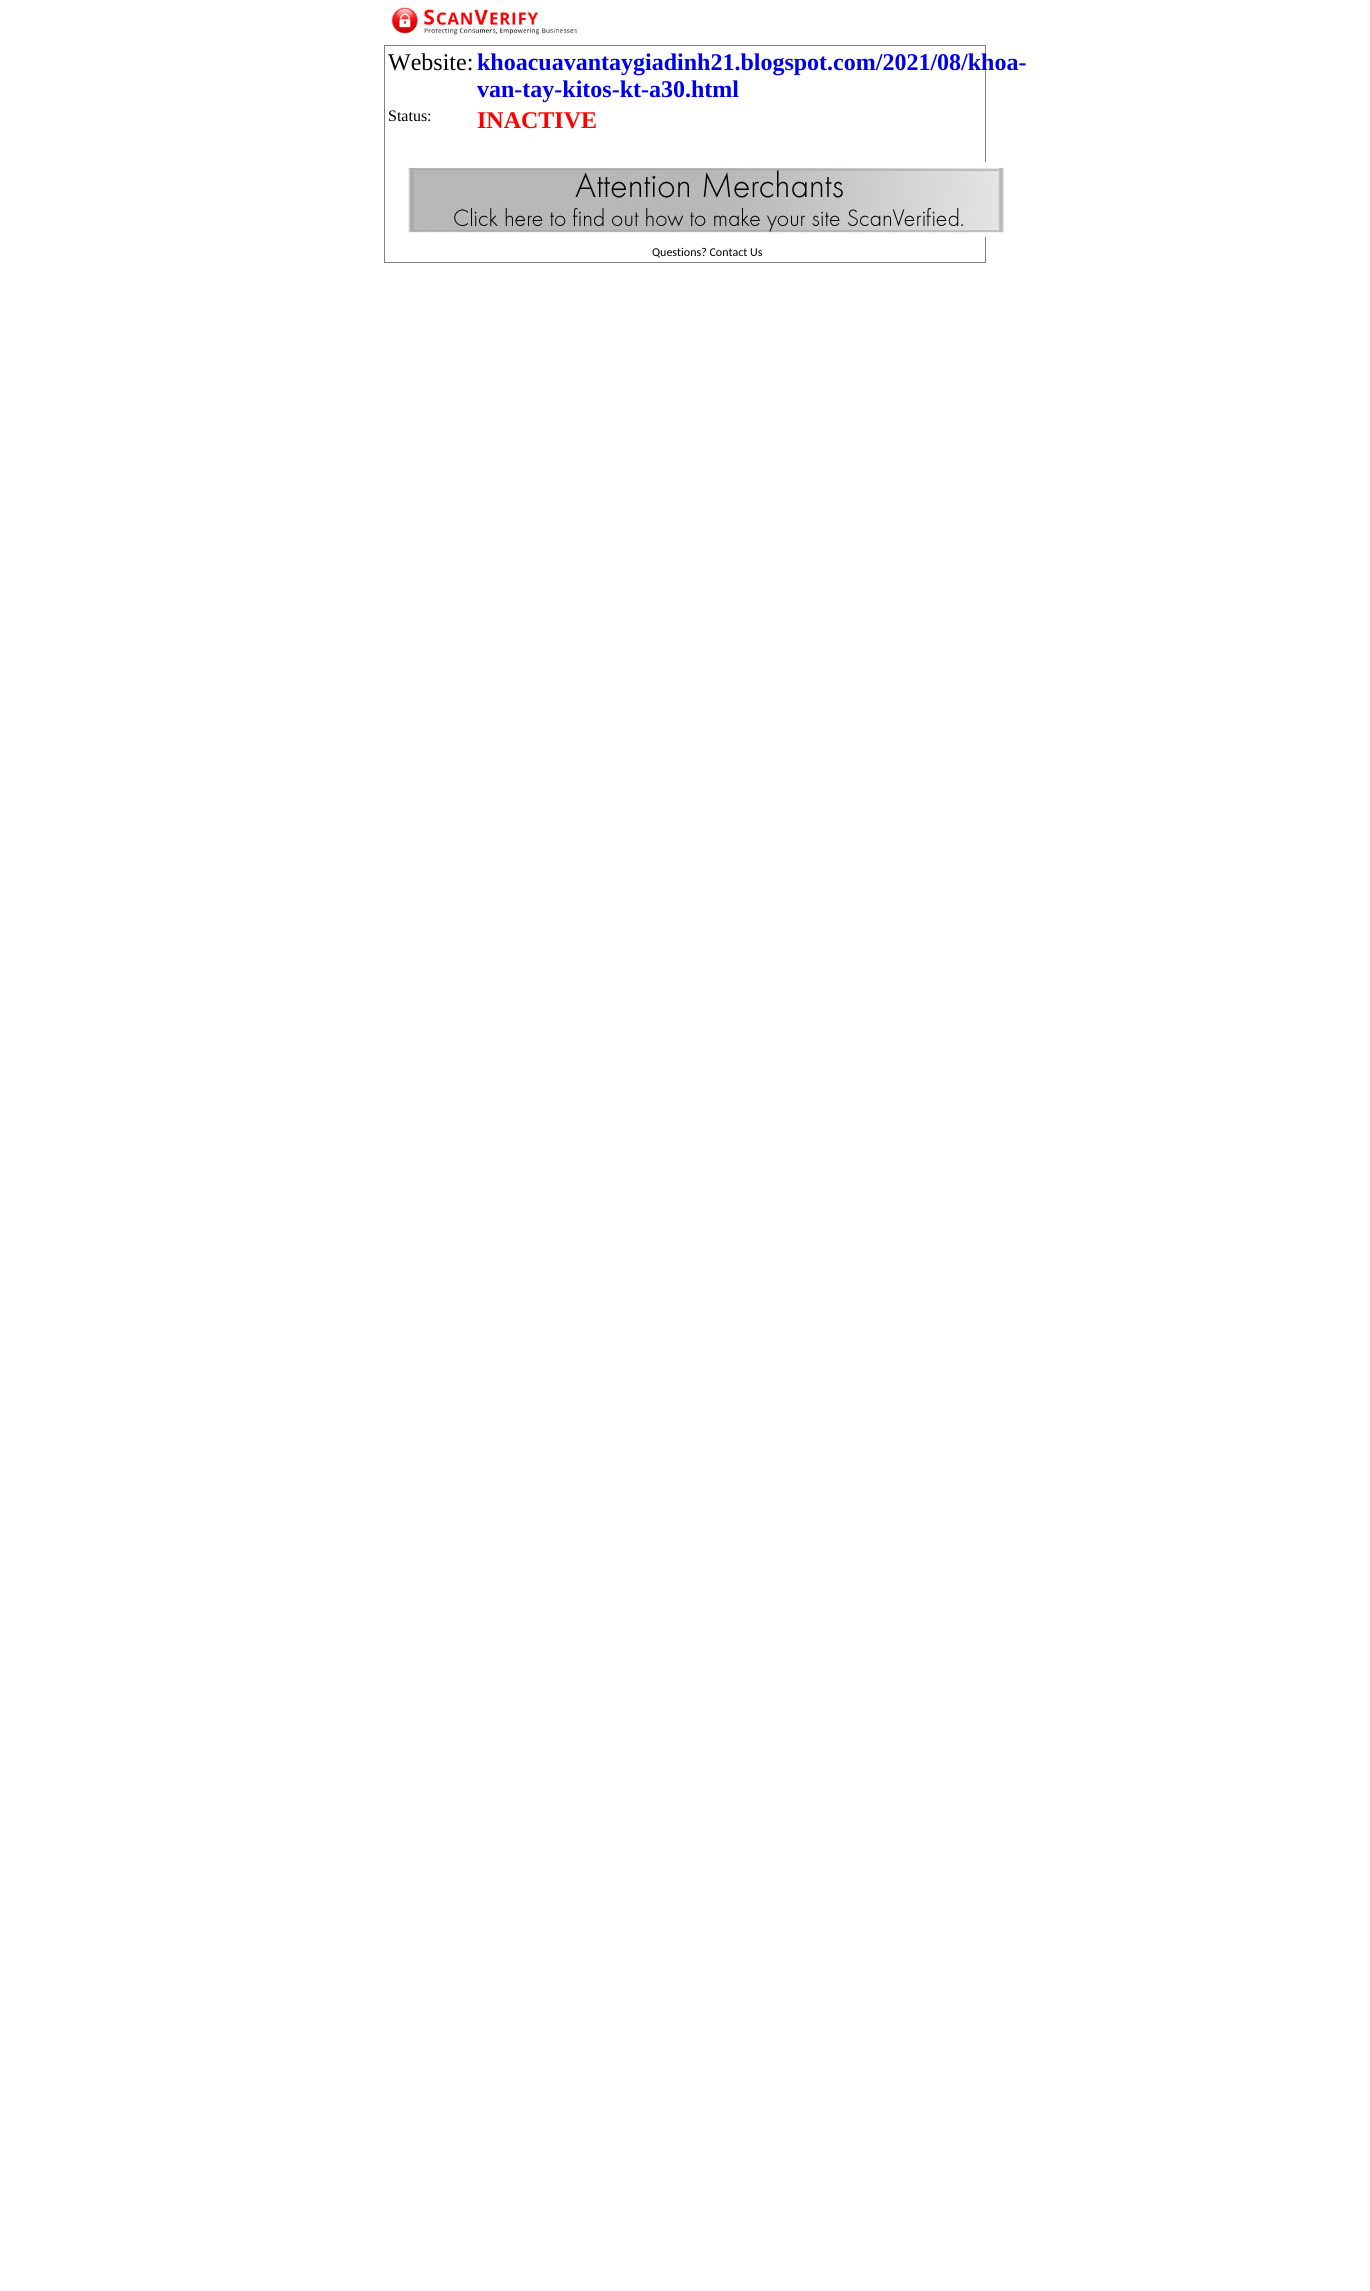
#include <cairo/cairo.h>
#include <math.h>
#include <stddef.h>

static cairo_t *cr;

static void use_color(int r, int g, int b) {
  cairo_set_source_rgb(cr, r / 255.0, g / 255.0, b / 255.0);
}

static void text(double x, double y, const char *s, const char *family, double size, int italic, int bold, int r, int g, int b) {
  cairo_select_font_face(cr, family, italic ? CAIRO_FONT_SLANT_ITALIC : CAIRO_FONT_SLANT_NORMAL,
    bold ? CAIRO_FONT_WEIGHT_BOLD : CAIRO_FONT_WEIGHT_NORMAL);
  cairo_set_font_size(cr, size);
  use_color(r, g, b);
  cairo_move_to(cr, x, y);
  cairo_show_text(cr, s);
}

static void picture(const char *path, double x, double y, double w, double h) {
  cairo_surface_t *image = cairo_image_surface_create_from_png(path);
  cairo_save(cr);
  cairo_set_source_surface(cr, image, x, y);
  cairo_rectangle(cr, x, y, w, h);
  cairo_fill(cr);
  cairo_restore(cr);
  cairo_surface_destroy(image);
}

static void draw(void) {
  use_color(255, 255, 255);
  cairo_paint(cr);
  picture("img_01.png", 390, 3, 187, 32);
  cairo_rectangle(cr, 384.5, 45.5, 601, 217);
  use_color(128, 128, 128);
  cairo_set_line_width(cr, 1);
  cairo_stroke(cr);
  picture("img_02.png", 408, 162, 597, 75);
  text(388, 70, "Website:", "Liberation Serif", 24, 0, 0, 0, 0, 0);
  text(477, 70, "khoacuavantaygiadinh21.blogspot.com/2021/08/khoa-", "Liberation Serif", 24, 0, 1, 0, 0, 238);
  text(477, 97, "van-tay-kitos-kt-a30.html", "Liberation Serif", 24, 0, 1, 0, 0, 238);
  text(388, 121, "Status:", "Liberation Serif", 16, 0, 0, 0, 0, 0);
  text(477, 128, "INACTIVE", "Liberation Serif", 24, 0, 1, 255, 0, 0);
  text(652, 256, "Questions? Contact Us", "Carlito", 12, 0, 0, 0, 0, 0);
}

int main(void) {
  cairo_surface_t *surface = cairo_image_surface_create(CAIRO_FORMAT_RGB24, 1370, 2291);
  cr = cairo_create(surface);
  cairo_font_options_t *options = cairo_font_options_create();
  cairo_font_options_set_hint_metrics(options, CAIRO_HINT_METRICS_OFF);
  cairo_font_options_set_hint_style(options, CAIRO_HINT_STYLE_NONE);
  cairo_set_font_options(cr, options);
  cairo_set_miter_limit(cr, 4);
  draw();
  cairo_surface_write_to_png(surface, "out.png");
  cairo_font_options_destroy(options);
  cairo_destroy(cr);
  cairo_surface_destroy(surface);
  return 0;
}
